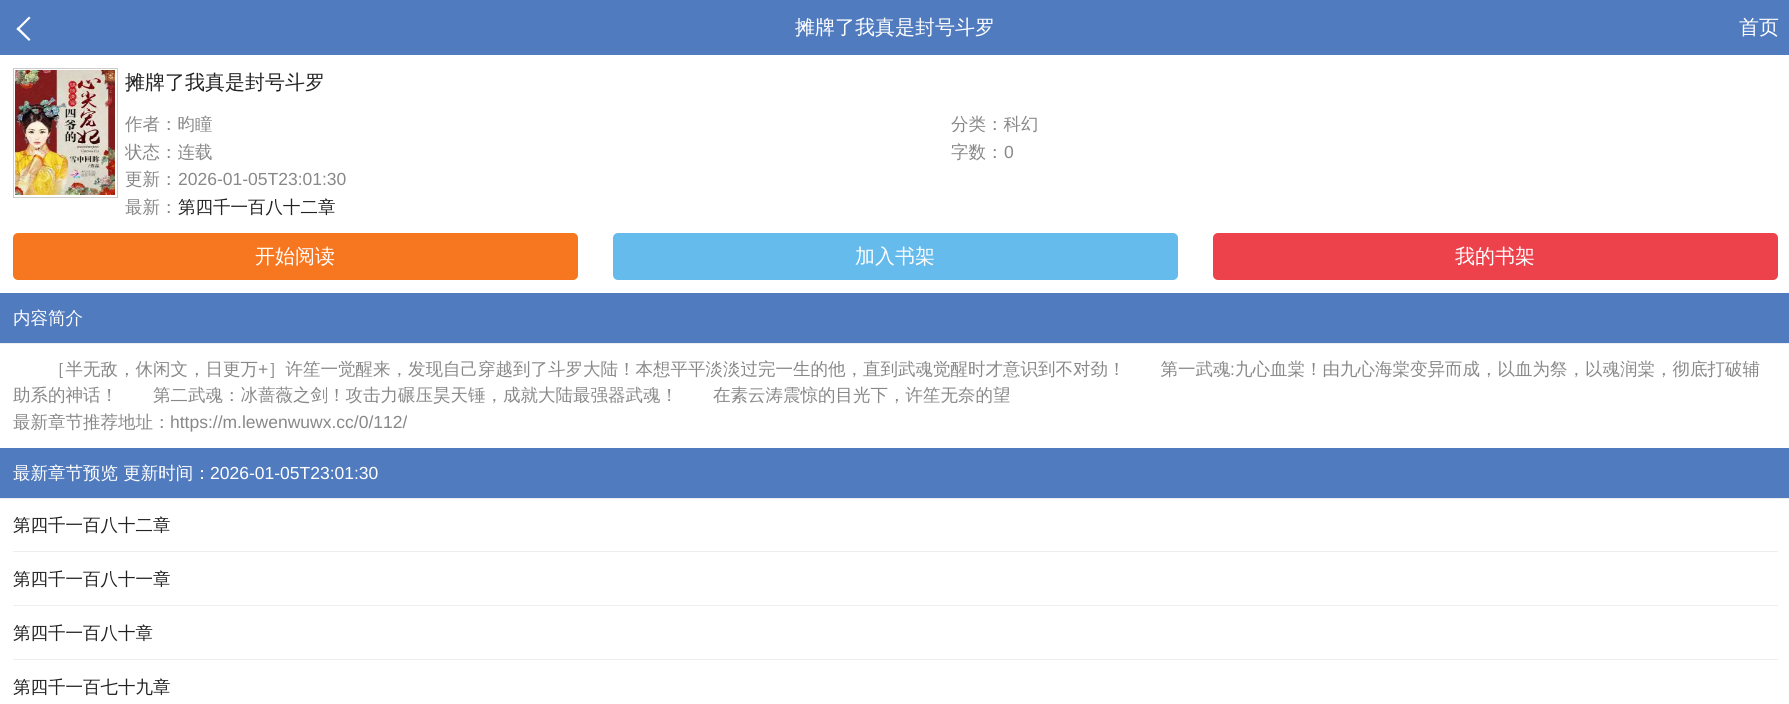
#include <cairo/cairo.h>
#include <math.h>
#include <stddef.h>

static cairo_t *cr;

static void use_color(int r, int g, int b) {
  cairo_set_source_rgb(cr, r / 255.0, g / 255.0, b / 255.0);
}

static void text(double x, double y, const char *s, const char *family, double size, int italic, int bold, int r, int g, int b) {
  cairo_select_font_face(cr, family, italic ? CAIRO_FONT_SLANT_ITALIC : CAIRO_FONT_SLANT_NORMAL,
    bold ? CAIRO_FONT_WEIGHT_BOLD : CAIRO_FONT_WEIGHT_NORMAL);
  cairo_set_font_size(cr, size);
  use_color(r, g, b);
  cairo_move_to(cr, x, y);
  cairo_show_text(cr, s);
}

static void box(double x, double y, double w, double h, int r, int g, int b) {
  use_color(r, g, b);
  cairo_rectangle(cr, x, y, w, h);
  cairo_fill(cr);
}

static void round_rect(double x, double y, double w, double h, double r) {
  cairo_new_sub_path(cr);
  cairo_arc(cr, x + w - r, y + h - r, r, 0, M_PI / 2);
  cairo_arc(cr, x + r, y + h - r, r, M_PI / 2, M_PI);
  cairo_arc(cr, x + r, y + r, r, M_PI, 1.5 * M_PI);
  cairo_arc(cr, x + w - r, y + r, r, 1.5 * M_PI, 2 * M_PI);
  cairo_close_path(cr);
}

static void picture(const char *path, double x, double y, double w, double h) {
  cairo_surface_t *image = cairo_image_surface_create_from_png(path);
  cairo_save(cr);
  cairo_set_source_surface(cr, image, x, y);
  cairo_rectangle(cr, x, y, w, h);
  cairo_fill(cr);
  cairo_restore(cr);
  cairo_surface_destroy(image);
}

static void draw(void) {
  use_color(255, 255, 255);
  cairo_paint(cr);
  box(0, 0, 1789, 55, 80, 123, 191);
  use_color(255, 255, 255);
  cairo_new_path(cr);
  cairo_move_to(cr, 16.5, 29);
  cairo_line_to(cr, 29, 16.5);
  cairo_line_to(cr, 30.5, 18);
  cairo_line_to(cr, 18, 30.5);
  cairo_close_path(cr);
  cairo_fill(cr);
  cairo_new_path(cr);
  cairo_move_to(cr, 16.5, 29);
  cairo_line_to(cr, 18, 27);
  cairo_line_to(cr, 30.5, 39.5);
  cairo_line_to(cr, 29, 41);
  cairo_close_path(cr);
  cairo_fill(cr);
  cairo_rectangle(cr, 13.5, 68.5, 104, 129);
  use_color(204, 204, 204);
  cairo_set_line_width(cr, 1);
  cairo_stroke(cr);
  picture("img_01.png", 15, 70, 100, 125);
  use_color(247, 119, 32);
  round_rect(13, 233, 565, 47, 5);
  cairo_fill(cr);
  use_color(101, 187, 236);
  round_rect(613, 233, 565, 47, 5);
  cairo_fill(cr);
  use_color(237, 66, 75);
  round_rect(1213, 233, 565, 47, 5);
  cairo_fill(cr);
  box(0, 293, 1789, 50, 80, 123, 191);
  box(0, 343, 1789, 1, 238, 238, 238);
  box(0, 448, 1789, 50, 80, 123, 191);
  box(0, 498, 1789, 1, 238, 238, 238);
  box(13, 551, 1765, 1, 238, 238, 238);
  box(13, 605, 1765, 1, 238, 238, 238);
  box(13, 659, 1765, 1, 238, 238, 238);
  text(795, 34, "摊牌了我真是封号斗罗", "WenQuanYi Zen Hei Medium", 20, 0, 0, 255, 255, 255);
  text(1739, 34, "首页", "WenQuanYi Zen Hei Medium", 20, 0, 0, 255, 255, 255);
  text(125, 89, "摊牌了我真是封号斗罗", "WenQuanYi Zen Hei Medium", 20, 0, 0, 34, 34, 34);
  text(125, 130, "作者：昀瞳", "WenQuanYi Zen Hei Medium", 17.5, 0, 0, 136, 136, 136);
  text(951, 130, "分类：科幻", "WenQuanYi Zen Hei Medium", 17.5, 0, 0, 136, 136, 136);
  text(125, 158, "状态：连载", "WenQuanYi Zen Hei Medium", 17.5, 0, 0, 136, 136, 136);
  text(951, 158, "字数：", "WenQuanYi Zen Hei Medium", 17.5, 0, 0, 136, 136, 136);
  text(1004, 158, "0", "Liberation Sans", 17.5, 0, 0, 136, 136, 136);
  text(125, 185, "更新：", "WenQuanYi Zen Hei Medium", 17.5, 0, 0, 136, 136, 136);
  text(178, 185, "2026-01-05T23:01:30", "Liberation Sans", 17.5, 0, 0, 136, 136, 136);
  text(125, 213, "最新：", "WenQuanYi Zen Hei Medium", 17.5, 0, 0, 136, 136, 136);
  text(178, 213, "第四千一百八十二章", "WenQuanYi Zen Hei Medium", 17.5, 0, 0, 34, 34, 34);
  text(255, 263, "开始阅读", "WenQuanYi Zen Hei Medium", 20, 0, 0, 255, 255, 255);
  text(855, 263, "加入书架", "WenQuanYi Zen Hei Medium", 20, 0, 0, 255, 255, 255);
  text(1455, 263, "我的书架", "WenQuanYi Zen Hei Medium", 20, 0, 0, 255, 255, 255);
  text(13, 324, "内容简介", "WenQuanYi Zen Hei Medium", 17.5, 0, 0, 255, 255, 255);
  text(48, 375, "［半无敌，休闲文，日更万", "WenQuanYi Zen Hei Medium", 17.5, 0, 0, 136, 136, 136);
  text(258, 375, "+", "Liberation Sans", 17.5, 0, 0, 136, 136, 136);
  text(268, 375, "］许笙一觉醒来，发现自己穿越到了斗罗大陆！本想平平淡淡过完一生的他，直到武魂觉醒时才意识到不对劲！　　第一武魂", "WenQuanYi Zen Hei Medium", 17.5, 0, 0, 136, 136, 136);
  text(1230, 375, ":", "Liberation Sans", 17.5, 0, 0, 136, 136, 136);
  text(1235, 375, "九心血棠！由九心海棠变异而成，以血为祭，以魂润棠，彻底打破辅", "WenQuanYi Zen Hei Medium", 17.5, 0, 0, 136, 136, 136);
  text(13, 401, "助系的神话！　　第二武魂：冰蔷薇之剑！攻击力碾压昊天锤，成就大陆最强器武魂！　　在素云涛震惊的目光下，许笙无奈的望", "WenQuanYi Zen Hei Medium", 17.5, 0, 0, 136, 136, 136);
  text(13, 428, "最新章节推荐地址：", "WenQuanYi Zen Hei Medium", 17.5, 0, 0, 136, 136, 136);
  text(170, 428, "https://m.lewenwuwx.cc/0/112/", "Liberation Sans", 17.5, 0, 0, 136, 136, 136);
  text(13, 479, "最新章节预览 更新时间：", "WenQuanYi Zen Hei Medium", 17.5, 0, 0, 255, 255, 255);
  text(210, 479, "2026-01-05T23:01:30", "Liberation Sans", 17.5, 0, 0, 255, 255, 255);
  text(13, 531, "第四千一百八十二章", "WenQuanYi Zen Hei Medium", 17.5, 0, 0, 34, 34, 34);
  text(13, 585, "第四千一百八十一章", "WenQuanYi Zen Hei Medium", 17.5, 0, 0, 34, 34, 34);
  text(13, 639, "第四千一百八十章", "WenQuanYi Zen Hei Medium", 17.5, 0, 0, 34, 34, 34);
  text(13, 693, "第四千一百七十九章", "WenQuanYi Zen Hei Medium", 17.5, 0, 0, 34, 34, 34);
}

int main(void) {
  cairo_surface_t *surface = cairo_image_surface_create(CAIRO_FORMAT_RGB24, 1789, 704);
  cr = cairo_create(surface);
  cairo_font_options_t *options = cairo_font_options_create();
  cairo_font_options_set_hint_metrics(options, CAIRO_HINT_METRICS_OFF);
  cairo_font_options_set_hint_style(options, CAIRO_HINT_STYLE_NONE);
  cairo_set_font_options(cr, options);
  cairo_set_miter_limit(cr, 4);
  draw();
  cairo_surface_write_to_png(surface, "out.png");
  cairo_font_options_destroy(options);
  cairo_destroy(cr);
  cairo_surface_destroy(surface);
  return 0;
}
